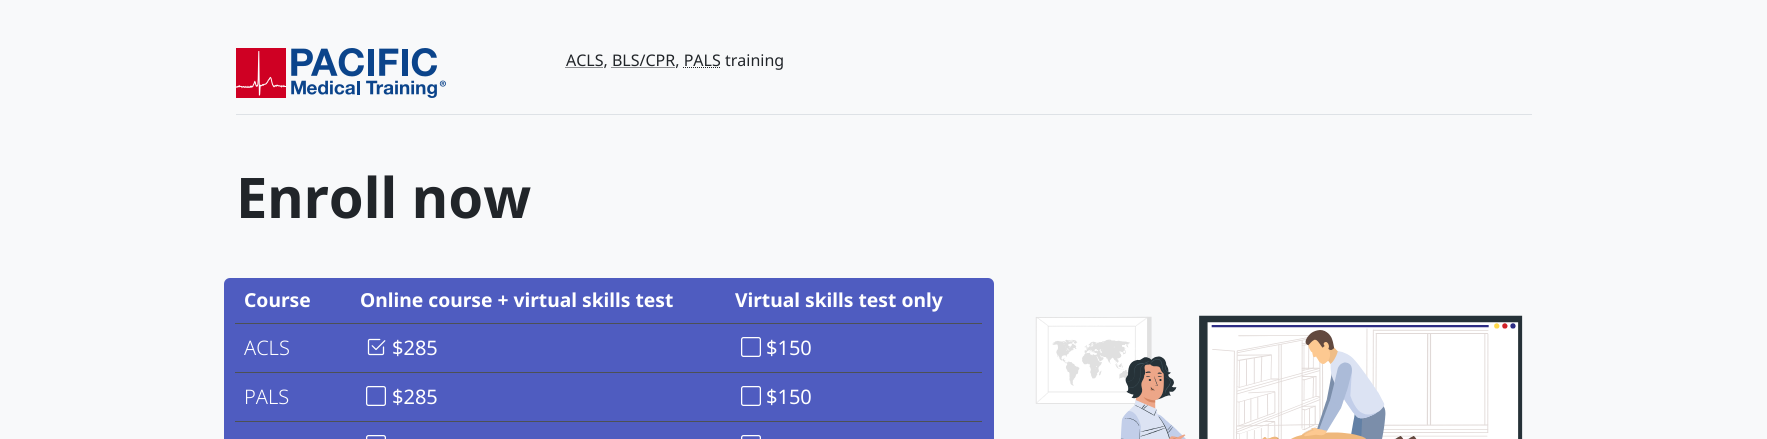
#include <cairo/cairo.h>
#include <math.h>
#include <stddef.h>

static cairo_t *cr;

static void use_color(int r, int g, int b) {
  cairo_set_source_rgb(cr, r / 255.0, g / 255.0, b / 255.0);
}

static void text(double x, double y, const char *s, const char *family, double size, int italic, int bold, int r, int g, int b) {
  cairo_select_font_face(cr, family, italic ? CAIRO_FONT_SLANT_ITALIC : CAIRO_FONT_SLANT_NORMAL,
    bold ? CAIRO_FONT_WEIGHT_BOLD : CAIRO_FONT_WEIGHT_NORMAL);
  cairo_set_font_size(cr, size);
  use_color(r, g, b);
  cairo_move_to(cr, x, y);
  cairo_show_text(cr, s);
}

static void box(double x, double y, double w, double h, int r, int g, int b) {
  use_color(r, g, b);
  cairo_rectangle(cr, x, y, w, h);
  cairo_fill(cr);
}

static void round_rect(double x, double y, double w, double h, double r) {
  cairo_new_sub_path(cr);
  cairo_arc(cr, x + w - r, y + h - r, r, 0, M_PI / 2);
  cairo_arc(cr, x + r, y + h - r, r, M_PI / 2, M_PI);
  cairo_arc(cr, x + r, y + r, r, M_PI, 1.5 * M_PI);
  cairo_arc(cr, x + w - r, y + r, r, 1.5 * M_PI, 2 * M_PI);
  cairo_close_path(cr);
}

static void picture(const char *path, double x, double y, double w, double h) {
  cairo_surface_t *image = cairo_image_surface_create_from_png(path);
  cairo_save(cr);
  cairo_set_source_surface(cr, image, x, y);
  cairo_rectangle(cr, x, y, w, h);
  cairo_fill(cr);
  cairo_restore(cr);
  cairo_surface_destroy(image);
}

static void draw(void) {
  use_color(248, 249, 250);
  cairo_paint(cr);
  box(236, 114, 1296, 1, 222, 226, 230);
  picture("img_01.png", 236, 48, 210, 50);
  cairo_new_path(cr);
  cairo_move_to(cr, 565.5, 67.5);
  cairo_line_to(cr, 603, 67.5);
  use_color(33, 37, 41);
  cairo_set_line_width(cr, 1);
  cairo_set_dash(cr, (double[]){1, 1}, 2, 0);
  cairo_stroke(cr);
  cairo_new_path(cr);
  cairo_move_to(cr, 611.5, 67.5);
  cairo_line_to(cr, 674.5, 67.5);
  cairo_stroke(cr);
  cairo_new_path(cr);
  cairo_move_to(cr, 683, 67.5);
  cairo_line_to(cr, 720.5, 67.5);
  cairo_stroke(cr);
  use_color(79, 92, 192);
  round_rect(224, 278, 770, 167, 6);
  cairo_fill(cr);
  box(235, 323, 747, 1, 77, 81, 84);
  picture("img_02.png", 367, 338, 19, 18);
  box(235, 372, 747, 1, 77, 81, 84);
  picture("img_03.png", 741, 337, 20, 20);
  picture("img_03.png", 366, 386, 20, 20);
  box(235, 421, 747, 1, 77, 81, 84);
  picture("img_03.png", 741, 386, 20, 20);
  picture("img_04.png", 366, 435, 20, 4);
  picture("img_04.png", 741, 435, 20, 4);
  picture("img_05.png", 1035, 315, 488, 124);
  text(566, 66, "ACLS, BLS/CPR, PALS training", "Noto Sans", 16, 0, 0, 33, 37, 41);
  text(236, 218, "Enroll now", "Noto Sans", 56, 0, 1, 33, 37, 41);
  text(244, 307, "Course", "Noto Sans", 19.25, 0, 1, 255, 255, 255);
  text(360, 307, "Online course + virtual skills test", "Noto Sans", 19.25, 0, 1, 255, 255, 255);
  text(735, 307, "Virtual skills test only", "Noto Sans", 19.25, 0, 1, 255, 255, 255);
  text(244, 355, "ACLS", "Noto Sans Light", 20, 0, 0, 255, 255, 255);
  text(392, 355, "$285", "Noto Sans", 20, 0, 0, 255, 255, 255);
  text(766, 355, "$150", "Noto Sans", 20, 0, 0, 255, 255, 255);
  text(244, 404, "PALS", "Noto Sans Light", 20, 0, 0, 255, 255, 255);
  text(392, 404, "$285", "Noto Sans", 20, 0, 0, 255, 255, 255);
  text(766, 404, "$150", "Noto Sans", 20, 0, 0, 255, 255, 255);
}

int main(void) {
  cairo_surface_t *surface = cairo_image_surface_create(CAIRO_FORMAT_RGB24, 1767, 439);
  cr = cairo_create(surface);
  cairo_font_options_t *options = cairo_font_options_create();
  cairo_font_options_set_hint_metrics(options, CAIRO_HINT_METRICS_OFF);
  cairo_font_options_set_hint_style(options, CAIRO_HINT_STYLE_NONE);
  cairo_set_font_options(cr, options);
  cairo_set_miter_limit(cr, 4);
  draw();
  cairo_surface_write_to_png(surface, "out.png");
  cairo_font_options_destroy(options);
  cairo_destroy(cr);
  cairo_surface_destroy(surface);
  return 0;
}
